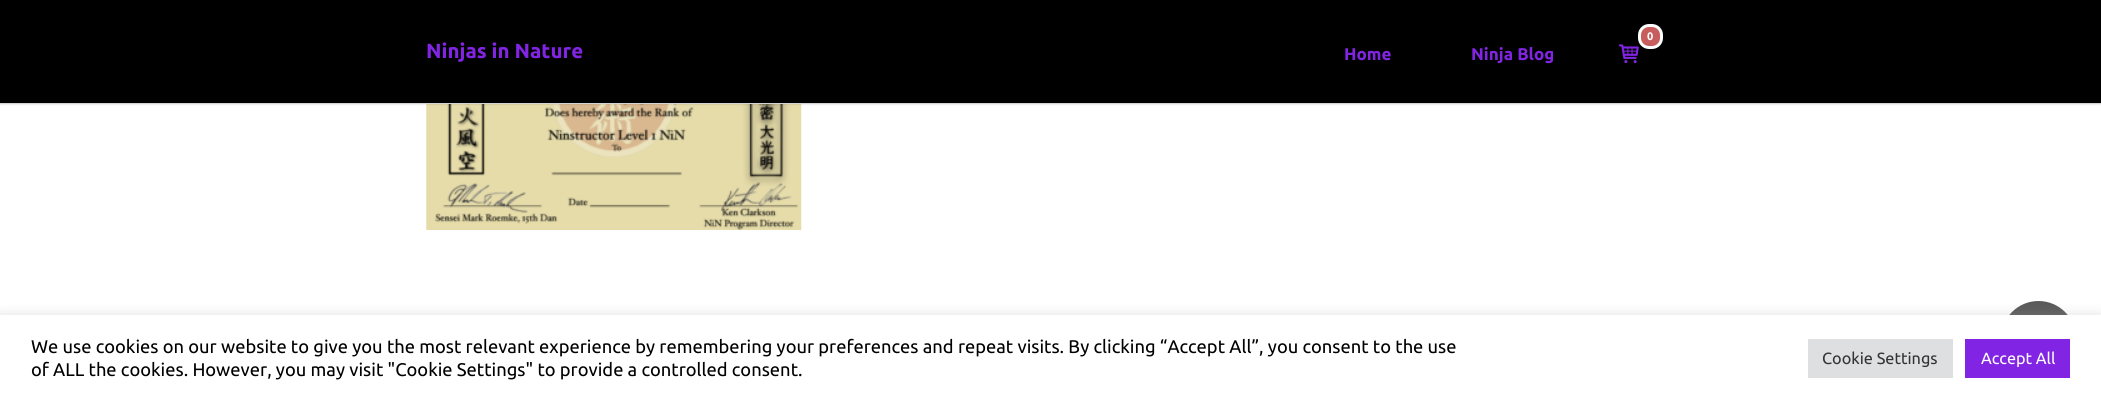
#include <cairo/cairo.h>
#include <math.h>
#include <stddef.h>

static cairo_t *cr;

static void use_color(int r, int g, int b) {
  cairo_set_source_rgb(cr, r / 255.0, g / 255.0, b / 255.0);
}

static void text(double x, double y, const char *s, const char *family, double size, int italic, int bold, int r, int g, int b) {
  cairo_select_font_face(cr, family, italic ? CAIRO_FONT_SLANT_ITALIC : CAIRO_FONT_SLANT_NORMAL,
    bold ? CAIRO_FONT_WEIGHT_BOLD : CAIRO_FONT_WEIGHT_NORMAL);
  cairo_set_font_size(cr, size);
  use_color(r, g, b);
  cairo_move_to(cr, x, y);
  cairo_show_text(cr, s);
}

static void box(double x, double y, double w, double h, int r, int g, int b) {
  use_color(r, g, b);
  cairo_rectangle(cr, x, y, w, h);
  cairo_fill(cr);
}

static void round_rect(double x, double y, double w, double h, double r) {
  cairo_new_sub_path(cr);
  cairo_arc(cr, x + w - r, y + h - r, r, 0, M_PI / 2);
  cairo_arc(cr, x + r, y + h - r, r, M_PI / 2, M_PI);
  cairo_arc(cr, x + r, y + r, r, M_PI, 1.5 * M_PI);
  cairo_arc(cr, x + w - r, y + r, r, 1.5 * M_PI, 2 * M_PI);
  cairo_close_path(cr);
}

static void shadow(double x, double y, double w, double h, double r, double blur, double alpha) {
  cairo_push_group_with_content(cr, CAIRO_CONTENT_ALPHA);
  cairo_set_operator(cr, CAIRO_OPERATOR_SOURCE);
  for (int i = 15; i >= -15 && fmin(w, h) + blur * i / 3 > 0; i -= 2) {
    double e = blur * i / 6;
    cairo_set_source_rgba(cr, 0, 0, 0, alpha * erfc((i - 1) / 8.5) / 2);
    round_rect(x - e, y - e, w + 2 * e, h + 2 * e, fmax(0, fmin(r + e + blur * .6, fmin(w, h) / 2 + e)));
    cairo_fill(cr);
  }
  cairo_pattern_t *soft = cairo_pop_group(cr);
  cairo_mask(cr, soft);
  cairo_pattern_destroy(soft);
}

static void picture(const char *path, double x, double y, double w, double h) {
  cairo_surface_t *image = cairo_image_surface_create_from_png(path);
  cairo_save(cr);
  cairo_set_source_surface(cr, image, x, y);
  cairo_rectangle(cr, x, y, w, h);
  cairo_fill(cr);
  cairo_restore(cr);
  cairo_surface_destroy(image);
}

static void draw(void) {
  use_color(255, 255, 255);
  cairo_paint(cr);
  picture("img_02.png", 426, 104, 376, 126);
  use_color(0, 0, 0);
  shadow(0, 1, 2101, 104, 0, 0.5, 0.07);
  box(0, 0, 2101, 103, 0, 0, 0);
  box(0, 103, 2101, 1, 212, 212, 212);
  picture("img_01.png", 1618, 44, 21, 20);
  use_color(199, 93, 93);
  round_rect(1639.5, 25.5, 22, 22, 9.5);
  cairo_fill_preserve(cr);
  use_color(255, 255, 255);
  cairo_set_line_width(cr, 3);
  cairo_stroke(cr);
  use_color(89, 89, 89);
  cairo_arc(cr, 2038.5, 338.5, 37.5, 0, 2 * M_PI);
  cairo_fill(cr);
  use_color(172, 171, 171);
  shadow(0, 314, 2101, 86, 0, 6, 0.3);
  box(0, 315, 2101, 86, 255, 255, 255);
  box(1808, 339, 145, 39, 222, 223, 224);
  box(1965, 339, 105, 39, 130, 36, 227);
  text(426, 58, "Ninjas in Nature", "Ubuntu", 20.5, 0, 1, 130, 36, 227);
  text(1647, 40, "0", "Ubuntu", 11, 0, 1, 255, 255, 255);
  text(1344, 60, "Home", "Ubuntu", 17, 0, 1, 130, 36, 227);
  text(1471, 60, "Ninja Blog", "Ubuntu", 17, 0, 1, 130, 36, 227);
  text(31, 353, "We use cookies on our website to give you the most relevant experience by remembering your preferences and repeat visits. By clicking “Accept All”, you consent to the use", "Ubuntu", 18.33, 0, 0, 0, 0, 0);
  text(31, 376, "of ALL the cookies. However, you may visit \"Cookie Settings\" to provide a controlled consent.", "Ubuntu", 18.33, 0, 0, 0, 0, 0);
  text(1822, 364, "Cookie Settings", "Ubuntu", 16.25, 0, 0, 51, 51, 51);
  text(1981, 364, "Accept All", "Ubuntu", 16.25, 0, 0, 255, 255, 255);
}

int main(void) {
  cairo_surface_t *surface = cairo_image_surface_create(CAIRO_FORMAT_RGB24, 2101, 401);
  cr = cairo_create(surface);
  cairo_font_options_t *options = cairo_font_options_create();
  cairo_font_options_set_hint_metrics(options, CAIRO_HINT_METRICS_OFF);
  cairo_font_options_set_hint_style(options, CAIRO_HINT_STYLE_NONE);
  cairo_set_font_options(cr, options);
  cairo_set_miter_limit(cr, 4);
  draw();
  cairo_surface_write_to_png(surface, "out.png");
  cairo_font_options_destroy(options);
  cairo_destroy(cr);
  cairo_surface_destroy(surface);
  return 0;
}
